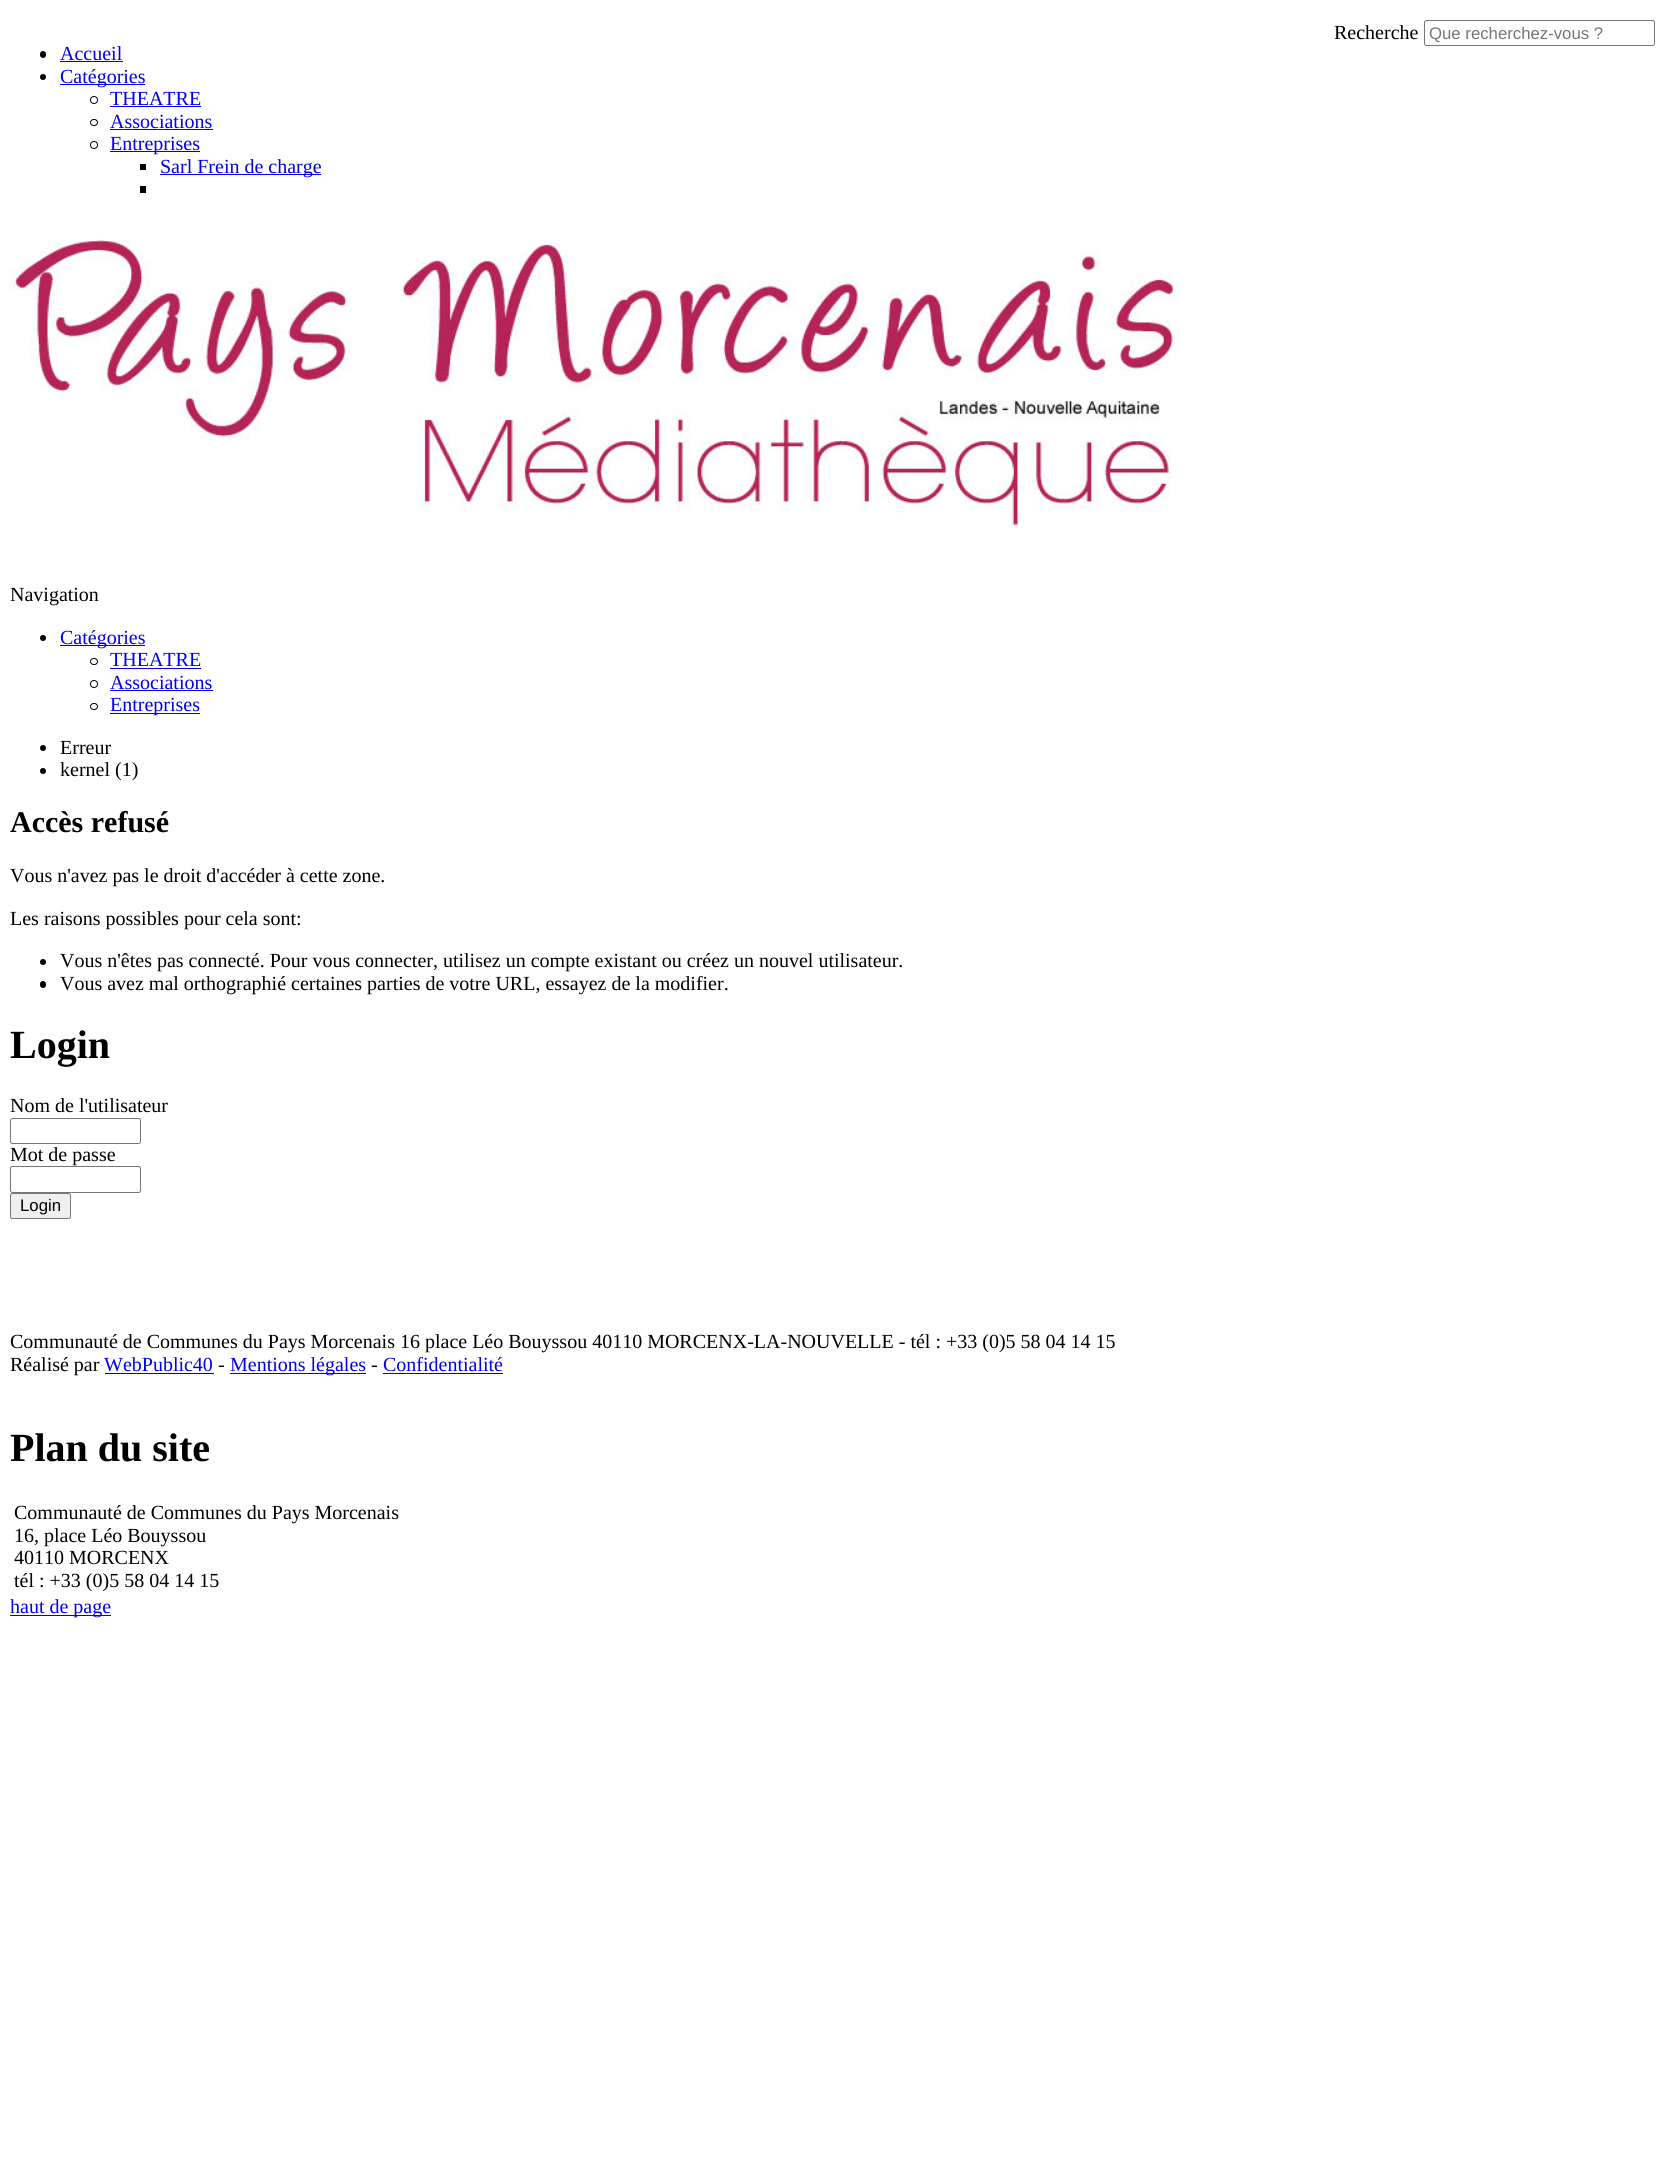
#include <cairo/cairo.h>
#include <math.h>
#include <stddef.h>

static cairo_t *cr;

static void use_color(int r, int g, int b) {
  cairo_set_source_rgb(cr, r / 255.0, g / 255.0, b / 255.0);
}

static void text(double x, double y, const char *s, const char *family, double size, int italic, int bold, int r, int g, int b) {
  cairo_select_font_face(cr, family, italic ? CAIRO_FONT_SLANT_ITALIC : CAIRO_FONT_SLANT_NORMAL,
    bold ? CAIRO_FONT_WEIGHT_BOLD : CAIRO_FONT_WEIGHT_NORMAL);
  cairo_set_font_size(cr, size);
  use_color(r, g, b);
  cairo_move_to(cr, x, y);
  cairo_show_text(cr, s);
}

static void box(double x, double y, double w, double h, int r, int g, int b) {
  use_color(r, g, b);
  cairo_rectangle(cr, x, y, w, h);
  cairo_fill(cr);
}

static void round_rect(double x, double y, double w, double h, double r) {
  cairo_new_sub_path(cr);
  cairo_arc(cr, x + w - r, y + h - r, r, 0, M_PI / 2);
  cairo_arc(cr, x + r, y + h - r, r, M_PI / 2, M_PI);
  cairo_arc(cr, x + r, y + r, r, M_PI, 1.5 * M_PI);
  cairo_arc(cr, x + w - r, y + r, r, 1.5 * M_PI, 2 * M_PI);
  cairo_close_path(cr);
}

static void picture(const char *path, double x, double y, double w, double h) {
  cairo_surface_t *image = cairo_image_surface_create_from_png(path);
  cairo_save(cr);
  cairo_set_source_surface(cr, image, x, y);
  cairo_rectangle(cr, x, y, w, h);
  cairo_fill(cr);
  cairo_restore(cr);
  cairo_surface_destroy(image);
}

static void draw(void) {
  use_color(255, 255, 255);
  cairo_paint(cr);
  round_rect(1424.5, 20.5, 230, 25, 2);
  use_color(118, 118, 118);
  cairo_set_line_width(cr, 1);
  cairo_stroke(cr);
  use_color(0, 0, 0);
  round_rect(40, 51, 6, 7, 3);
  cairo_fill(cr);
  box(60, 61, 63, 1, 0, 0, 238);
  use_color(0, 0, 0);
  cairo_arc(cr, 43, 77, 3, 0, 2 * M_PI);
  cairo_fill(cr);
  box(60, 84, 85, 1, 0, 0, 238);
  cairo_arc(cr, 94, 100, 3.5, 0, 2 * M_PI);
  use_color(0, 0, 0);
  cairo_stroke(cr);
  box(110, 106, 91, 1, 0, 0, 238);
  round_rect(90.5, 119.5, 7, 6, 3);
  use_color(0, 0, 0);
  cairo_stroke(cr);
  box(110, 129, 103, 1, 0, 0, 238);
  cairo_arc(cr, 94, 145, 3.5, 0, 2 * M_PI);
  use_color(0, 0, 0);
  cairo_stroke(cr);
  box(110, 151, 90, 1, 0, 0, 238);
  box(140, 164, 6, 6, 0, 0, 0);
  box(160, 174, 161, 1, 0, 0, 238);
  box(140, 186, 6, 7, 0, 0, 0);
  picture("img_01.png", 10, 240, 1170, 290);
  cairo_arc(cr, 43, 638, 3, 0, 2 * M_PI);
  cairo_fill(cr);
  box(60, 645, 85, 1, 0, 0, 238);
  round_rect(90.5, 658.5, 7, 6, 3);
  use_color(0, 0, 0);
  cairo_stroke(cr);
  box(110, 668, 91, 1, 0, 0, 238);
  cairo_arc(cr, 94, 684, 3.5, 0, 2 * M_PI);
  use_color(0, 0, 0);
  cairo_stroke(cr);
  box(110, 690, 103, 1, 0, 0, 238);
  round_rect(90.5, 703.5, 7, 6, 3);
  use_color(0, 0, 0);
  cairo_stroke(cr);
  box(110, 713, 90, 1, 0, 0, 238);
  use_color(0, 0, 0);
  cairo_arc(cr, 43, 748, 3, 0, 2 * M_PI);
  cairo_fill(cr);
  cairo_arc(cr, 43, 771, 3, 0, 2 * M_PI);
  cairo_fill(cr);
  cairo_arc(cr, 43, 962, 3, 0, 2 * M_PI);
  cairo_fill(cr);
  round_rect(40, 981, 6, 7, 3);
  cairo_fill(cr);
  round_rect(10.5, 1118.5, 130, 25, 2);
  use_color(118, 118, 118);
  cairo_stroke(cr);
  round_rect(10.5, 1166.5, 130, 26, 2);
  cairo_stroke(cr);
  use_color(239, 239, 239);
  round_rect(10.5, 1193.5, 60, 25, 2);
  cairo_fill_preserve(cr);
  use_color(118, 118, 118);
  cairo_stroke(cr);
  box(105, 1373, 109, 1, 0, 0, 238);
  box(230, 1373, 136, 1, 0, 0, 238);
  box(383, 1373, 120, 1, 0, 0, 238);
  box(10, 1615, 101, 1, 0, 0, 238);
  text(1334, 39, "Recherche", "Liberation Serif", 20, 0, 0, 0, 0, 0);
  text(1429, 39, "Que recherchez-vous ?", "Liberation Sans", 16.75, 0, 0, 117, 117, 117);
  text(60, 60, "Accueil", "Liberation Serif", 20, 0, 0, 0, 0, 238);
  text(60, 83, "Catégories", "Liberation Serif", 20, 0, 0, 0, 0, 238);
  text(110, 105, "THEATRE", "Liberation Serif", 20, 0, 0, 0, 0, 238);
  text(110, 128, "Associations", "Liberation Serif", 20, 0, 0, 0, 0, 238);
  text(110, 150, "Entreprises", "Liberation Serif", 20, 0, 0, 0, 0, 238);
  text(160, 173, "Sarl Frein de charge", "Liberation Serif", 20, 0, 0, 0, 0, 238);
  text(10, 601, "Navigation", "Liberation Serif", 20, 0, 0, 0, 0, 0);
  text(60, 644, "Catégories", "Liberation Serif", 20, 0, 0, 0, 0, 238);
  text(110, 666, "THEATRE", "Liberation Serif", 20, 0, 0, 0, 0, 238);
  text(110, 689, "Associations", "Liberation Serif", 20, 0, 0, 0, 0, 238);
  text(110, 711, "Entreprises", "Liberation Serif", 20, 0, 0, 0, 0, 238);
  text(60, 754, "Erreur", "Liberation Serif", 20, 0, 0, 0, 0, 0);
  text(60, 776, "kernel (1)", "Liberation Serif", 20, 0, 0, 0, 0, 0);
  text(10, 832, "Accès refusé", "Liberation Serif", 30, 0, 1, 0, 0, 0);
  text(10, 882, "Vous n'avez pas le droit d'accéder à cette zone.", "Liberation Serif", 20, 0, 0, 0, 0, 0);
  text(10, 925, "Les raisons possibles pour cela sont:", "Liberation Serif", 20, 0, 0, 0, 0, 0);
  text(60, 967, "Vous n'êtes pas connecté. Pour vous connecter, utilisez un compte existant ou créez un nouvel utilisateur.", "Liberation Serif", 20, 0, 0, 0, 0, 0);
  text(60, 990, "Vous avez mal orthographié certaines parties de votre URL, essayez de la modifier.", "Liberation Serif", 20, 0, 0, 0, 0, 0);
  text(10, 1058, "Login", "Liberation Serif", 40, 0, 1, 0, 0, 0);
  text(10, 1112, "Nom de l'utilisateur", "Liberation Serif", 20, 0, 0, 0, 0, 0);
  text(10, 1161, "Mot de passe", "Liberation Serif", 20, 0, 0, 0, 0, 0);
  text(20, 1211, "Login", "Liberation Sans", 16.75, 0, 0, 0, 0, 0);
  text(10, 1348, "Communauté de Communes du Pays Morcenais 16 place Léo Bouyssou 40110 MORCENX-LA-NOUVELLE - tél : +33 (0)5 58 04 14 15", "Liberation Serif", 20, 0, 0, 0, 0, 0);
  text(10, 1371, "Réalisé par", "Liberation Serif", 20, 0, 0, 0, 0, 0);
  text(104, 1371, "WebPublic40", "Liberation Serif", 20, 0, 0, 0, 0, 238);
  text(218, 1371, "-", "Liberation Serif", 20, 0, 0, 0, 0, 0);
  text(230, 1371, "Mentions légales", "Liberation Serif", 20, 0, 0, 0, 0, 238);
  text(371, 1371, "-", "Liberation Serif", 20, 0, 0, 0, 0, 0);
  text(383, 1371, "Confidentialité", "Liberation Serif", 20, 0, 0, 0, 0, 238);
  text(10, 1461, "Plan du site", "Liberation Serif", 40, 0, 1, 0, 0, 0);
  text(14, 1519, "Communauté de Communes du Pays Morcenais", "Liberation Serif", 20, 0, 0, 0, 0, 0);
  text(14, 1542, "16, place Léo Bouyssou", "Liberation Serif", 20, 0, 0, 0, 0, 0);
  text(14, 1564, "40110 MORCENX", "Liberation Serif", 20, 0, 0, 0, 0, 0);
  text(14, 1587, "tél : +33 (0)5 58 04 14 15", "Liberation Serif", 20, 0, 0, 0, 0, 0);
  text(10, 1613, "haut de page", "Liberation Serif", 20, 0, 0, 0, 0, 238);
}

int main(void) {
  cairo_surface_t *surface = cairo_image_surface_create(CAIRO_FORMAT_RGB24, 1664, 2179);
  cr = cairo_create(surface);
  cairo_font_options_t *options = cairo_font_options_create();
  cairo_font_options_set_hint_metrics(options, CAIRO_HINT_METRICS_OFF);
  cairo_font_options_set_hint_style(options, CAIRO_HINT_STYLE_NONE);
  cairo_set_font_options(cr, options);
  cairo_set_miter_limit(cr, 4);
  draw();
  cairo_surface_write_to_png(surface, "out.png");
  cairo_font_options_destroy(options);
  cairo_destroy(cr);
  cairo_surface_destroy(surface);
  return 0;
}
